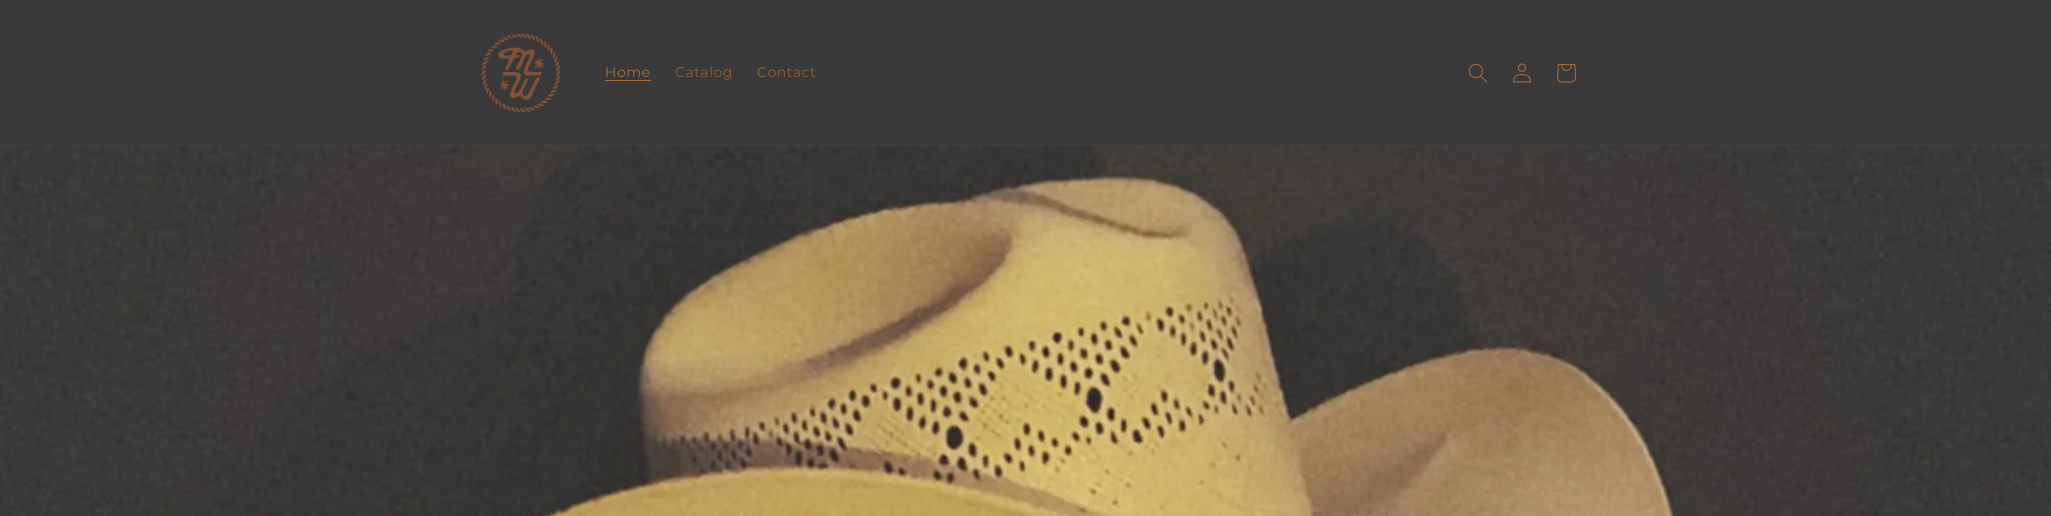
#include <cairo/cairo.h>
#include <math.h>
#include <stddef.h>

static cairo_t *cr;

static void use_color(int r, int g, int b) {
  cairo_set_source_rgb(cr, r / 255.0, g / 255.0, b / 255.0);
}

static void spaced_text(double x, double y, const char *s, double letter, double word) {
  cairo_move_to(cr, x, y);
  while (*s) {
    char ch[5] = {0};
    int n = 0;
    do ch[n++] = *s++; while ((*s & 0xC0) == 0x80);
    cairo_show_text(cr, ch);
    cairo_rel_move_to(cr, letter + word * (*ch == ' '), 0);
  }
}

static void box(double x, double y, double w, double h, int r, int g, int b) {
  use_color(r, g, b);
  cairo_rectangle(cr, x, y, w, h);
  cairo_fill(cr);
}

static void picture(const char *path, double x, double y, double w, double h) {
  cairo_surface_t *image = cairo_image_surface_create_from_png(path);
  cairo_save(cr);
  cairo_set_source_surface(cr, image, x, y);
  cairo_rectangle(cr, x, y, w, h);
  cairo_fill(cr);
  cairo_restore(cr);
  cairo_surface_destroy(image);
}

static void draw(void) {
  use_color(255, 255, 255);
  cairo_paint(cr);
  box(0, 0, 2051, 145, 58, 58, 58);
  box(0, 145, 2051, 1, 66, 62, 58);
  picture("img_01.png", 481, 33, 80, 80);
  box(605, 80, 46, 1, 162, 108, 62);
  picture("img_02.png", 1468, 63, 19, 20);
  picture("img_03.png", 1513, 63, 18, 20);
  picture("img_04.png", 1557, 64, 20, 19);
  picture("img_05.png", 0, 146, 2051, 370);
  cairo_select_font_face(cr, "Montserrat", CAIRO_FONT_SLANT_NORMAL, CAIRO_FONT_WEIGHT_NORMAL);
  cairo_set_font_size(cr, 14);
  spaced_text(605, 77, "Home", 0.5, 0);
  use_color(136, 96, 61);
  spaced_text(675, 77, "Catalog", 0.5, 0);
  spaced_text(757, 77, "Contact", 0.5, 0);
}

int main(void) {
  cairo_surface_t *surface = cairo_image_surface_create(CAIRO_FORMAT_RGB24, 2051, 516);
  cr = cairo_create(surface);
  cairo_font_options_t *options = cairo_font_options_create();
  cairo_font_options_set_hint_metrics(options, CAIRO_HINT_METRICS_OFF);
  cairo_font_options_set_hint_style(options, CAIRO_HINT_STYLE_NONE);
  cairo_set_font_options(cr, options);
  cairo_set_miter_limit(cr, 4);
  draw();
  cairo_surface_write_to_png(surface, "out.png");
  cairo_font_options_destroy(options);
  cairo_destroy(cr);
  cairo_surface_destroy(surface);
  return 0;
}
